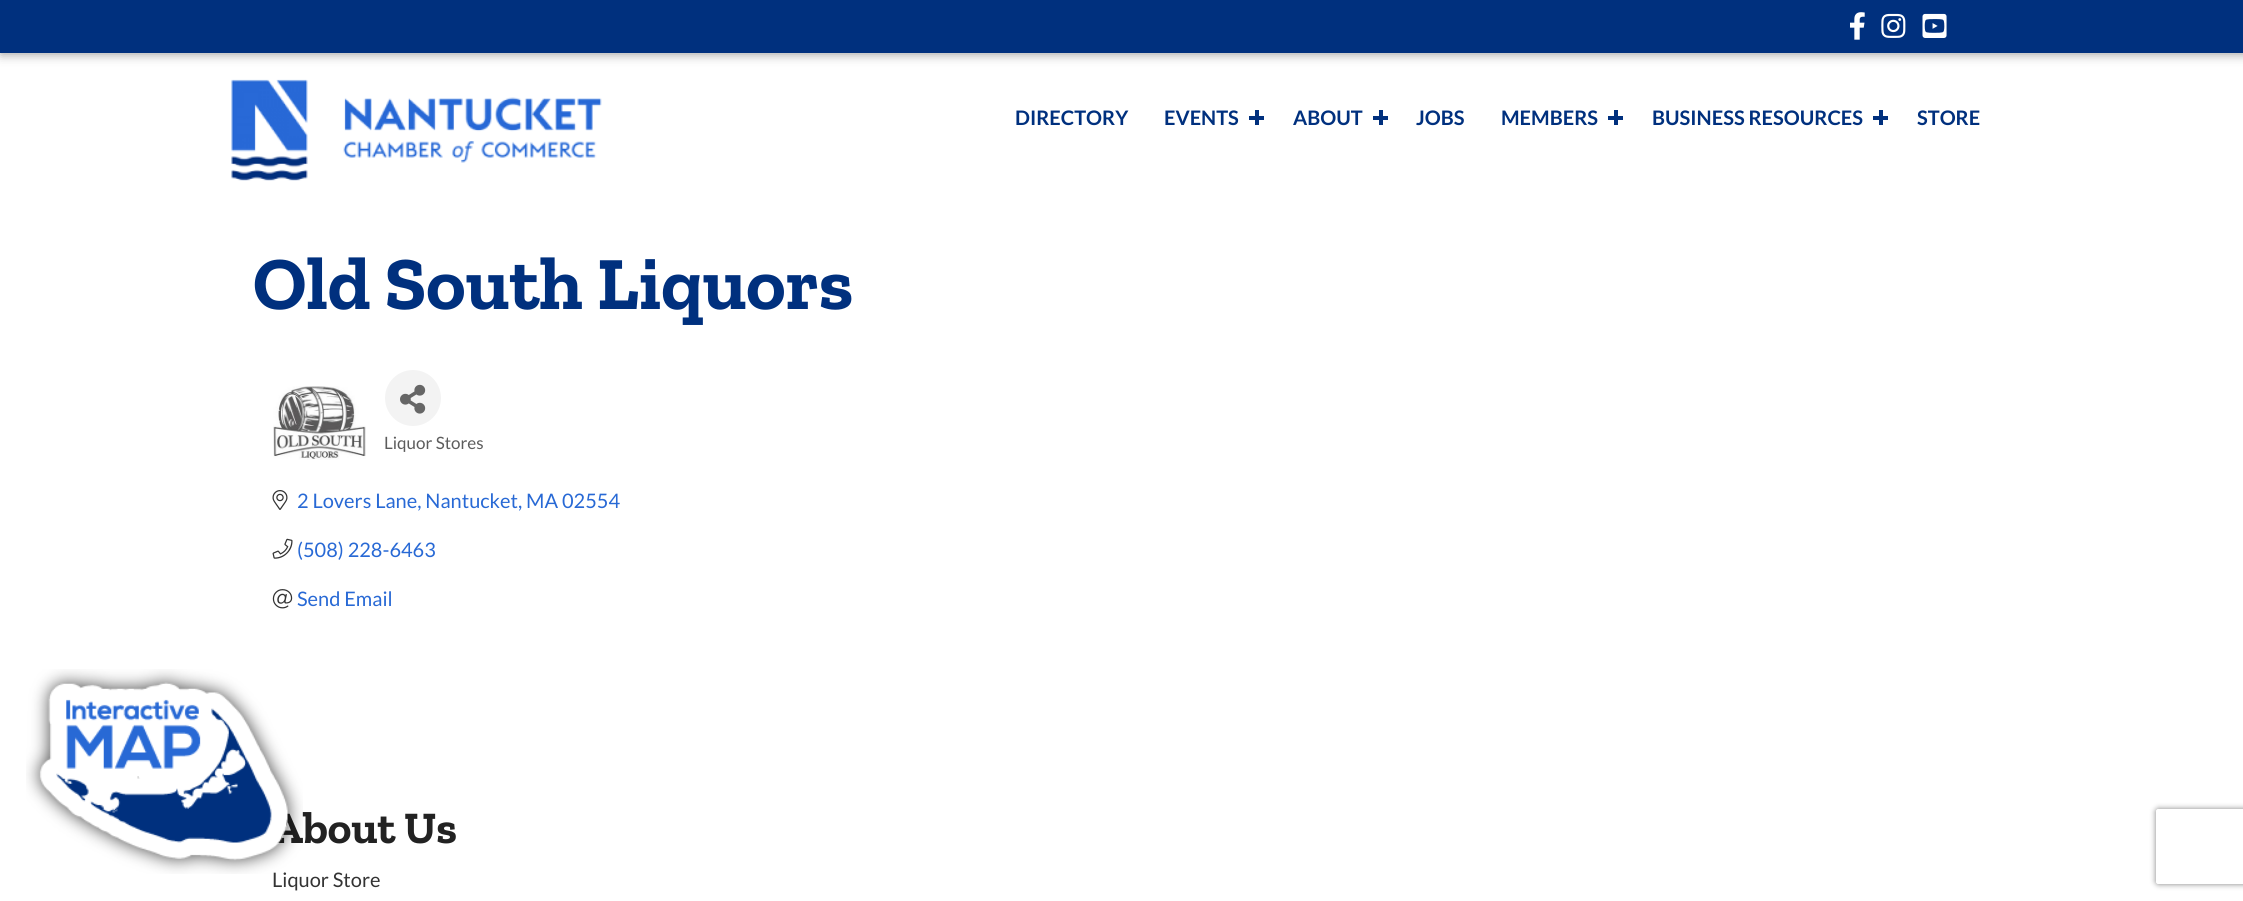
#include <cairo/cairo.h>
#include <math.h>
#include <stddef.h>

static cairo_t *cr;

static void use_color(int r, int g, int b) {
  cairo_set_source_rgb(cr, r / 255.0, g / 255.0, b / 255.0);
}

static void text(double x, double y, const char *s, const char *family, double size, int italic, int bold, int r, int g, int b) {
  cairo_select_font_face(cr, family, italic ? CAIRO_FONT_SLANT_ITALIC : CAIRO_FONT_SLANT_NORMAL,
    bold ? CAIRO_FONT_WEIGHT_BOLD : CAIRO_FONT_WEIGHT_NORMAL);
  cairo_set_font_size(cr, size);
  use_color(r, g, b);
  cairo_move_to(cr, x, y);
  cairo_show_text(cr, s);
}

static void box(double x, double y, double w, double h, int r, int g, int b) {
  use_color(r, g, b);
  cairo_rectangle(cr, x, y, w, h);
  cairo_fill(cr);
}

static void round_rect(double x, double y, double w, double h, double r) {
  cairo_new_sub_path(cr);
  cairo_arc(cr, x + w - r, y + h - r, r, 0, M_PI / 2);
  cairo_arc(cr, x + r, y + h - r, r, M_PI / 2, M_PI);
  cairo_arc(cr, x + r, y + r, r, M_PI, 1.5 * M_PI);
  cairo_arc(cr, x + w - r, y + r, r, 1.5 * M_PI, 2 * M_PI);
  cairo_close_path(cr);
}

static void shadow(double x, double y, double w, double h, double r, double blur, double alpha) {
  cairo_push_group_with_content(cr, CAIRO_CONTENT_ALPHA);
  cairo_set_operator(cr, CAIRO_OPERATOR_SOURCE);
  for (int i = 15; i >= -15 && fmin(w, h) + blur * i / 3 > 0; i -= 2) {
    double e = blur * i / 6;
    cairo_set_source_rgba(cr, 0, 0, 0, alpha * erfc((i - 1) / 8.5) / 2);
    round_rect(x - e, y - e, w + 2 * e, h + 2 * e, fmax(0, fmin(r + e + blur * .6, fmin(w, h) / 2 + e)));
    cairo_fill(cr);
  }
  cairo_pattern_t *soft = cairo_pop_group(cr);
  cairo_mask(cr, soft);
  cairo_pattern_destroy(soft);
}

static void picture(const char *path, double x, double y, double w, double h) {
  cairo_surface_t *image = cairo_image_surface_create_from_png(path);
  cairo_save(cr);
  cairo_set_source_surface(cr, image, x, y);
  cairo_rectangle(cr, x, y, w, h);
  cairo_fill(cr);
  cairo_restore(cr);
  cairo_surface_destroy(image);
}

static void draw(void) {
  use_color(255, 255, 255);
  cairo_paint(cr);
  use_color(153, 153, 153);
  shadow(1, 1, 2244, 53, 0, 5.5, 1);
  box(0, 0, 2243, 53, 0, 48, 126);
  picture("img_02.png", 1850, 12, 15, 28);
  picture("img_03.png", 1881, 13, 25, 25);
  picture("img_04.png", 1922, 13, 25, 25);
  picture("img_05.png", 231, 79, 371, 102);
  box(1249, 116, 15, 4, 0, 48, 126);
  box(1255, 110, 4, 15, 0, 48, 126);
  box(1373, 116, 15, 4, 0, 48, 126);
  box(1379, 110, 4, 15, 0, 48, 126);
  box(1608, 116, 15, 4, 0, 48, 126);
  box(1614, 110, 4, 15, 0, 48, 126);
  box(1873, 116, 15, 4, 0, 48, 126);
  box(1879, 110, 4, 15, 0, 48, 126);
  picture("img_06.png", 273, 386, 93, 74);
  use_color(243, 243, 243);
  cairo_arc(cr, 413, 398, 28, 0, 2 * M_PI);
  cairo_fill(cr);
  picture("img_07.png", 400, 384, 26, 30);
  picture("img_08.png", 272, 490, 16, 20);
  picture("img_09.png", 272, 538, 21, 21);
  picture("img_10.png", 272, 589, 21, 20);
  cairo_save(cr);
  cairo_set_fill_rule(cr, CAIRO_FILL_RULE_EVEN_ODD);
  cairo_new_path(cr);
  cairo_move_to(cr, 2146, 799);
  cairo_line_to(cr, 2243, 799);
  cairo_line_to(cr, 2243, 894);
  cairo_line_to(cr, 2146, 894);
  cairo_close_path(cr);
  cairo_move_to(cr, 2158.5, 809);
  cairo_line_to(cr, 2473.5, 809);
  cairo_curve_to(cr, 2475, 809, 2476, 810, 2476, 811.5);
  cairo_line_to(cr, 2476, 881.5);
  cairo_curve_to(cr, 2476, 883, 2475, 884, 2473.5, 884);
  cairo_line_to(cr, 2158.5, 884);
  cairo_curve_to(cr, 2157, 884, 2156, 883, 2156, 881.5);
  cairo_line_to(cr, 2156, 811.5);
  cairo_curve_to(cr, 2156, 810, 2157, 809, 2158.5, 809);
  cairo_close_path(cr);
  cairo_clip(cr);
  use_color(128, 128, 128);
  shadow(2156, 809, 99, 75, 2.5, 3, 1);
  cairo_restore(cr);
  text(1015, 125, "DIRECTORY", "Lato", 20, 0, 1, 0, 48, 126);
  text(1164, 125, "EVENTS", "Lato", 20, 0, 1, 0, 48, 126);
  text(1293, 125, "ABOUT", "Lato", 20, 0, 1, 0, 48, 126);
  text(1416, 125, "JOBS", "Lato", 20, 0, 1, 0, 48, 126);
  text(1501, 125, "MEMBERS", "Lato", 20, 0, 1, 0, 48, 126);
  text(1652, 125, "BUSINESS RESOURCES", "Lato", 20, 0, 1, 0, 48, 126);
  text(1917, 125, "STORE", "Lato", 20, 0, 1, 0, 48, 126);
  text(253, 309, "Old South Liquors", "Zilla Slab", 75, 0, 1, 0, 48, 126);
  text(384, 449, "Liquor Stores", "Lato", 17, 0, 0, 92, 92, 92);
  text(297, 508, "2 Lovers Lane, Nantucket, MA 02554", "Lato", 20, 0, 0, 40, 105, 213);
  text(297, 557, "(508) 228-6463", "Lato", 20, 0, 0, 40, 105, 213);
  text(297, 606, "Send Email", "Lato", 20, 0, 0, 40, 105, 213);
  text(272, 843, "About Us", "Zilla Slab", 45, 0, 1, 34, 34, 34);
  text(272, 887, "Liquor Store", "Lato", 20, 0, 0, 51, 51, 51);
  picture("img_01.png", 26, 669, 277, 205);
}

int main(void) {
  cairo_surface_t *surface = cairo_image_surface_create(CAIRO_FORMAT_RGB24, 2243, 901);
  cr = cairo_create(surface);
  cairo_font_options_t *options = cairo_font_options_create();
  cairo_font_options_set_hint_metrics(options, CAIRO_HINT_METRICS_OFF);
  cairo_font_options_set_hint_style(options, CAIRO_HINT_STYLE_NONE);
  cairo_set_font_options(cr, options);
  cairo_set_miter_limit(cr, 4);
  draw();
  cairo_surface_write_to_png(surface, "out.png");
  cairo_font_options_destroy(options);
  cairo_destroy(cr);
  cairo_surface_destroy(surface);
  return 0;
}
